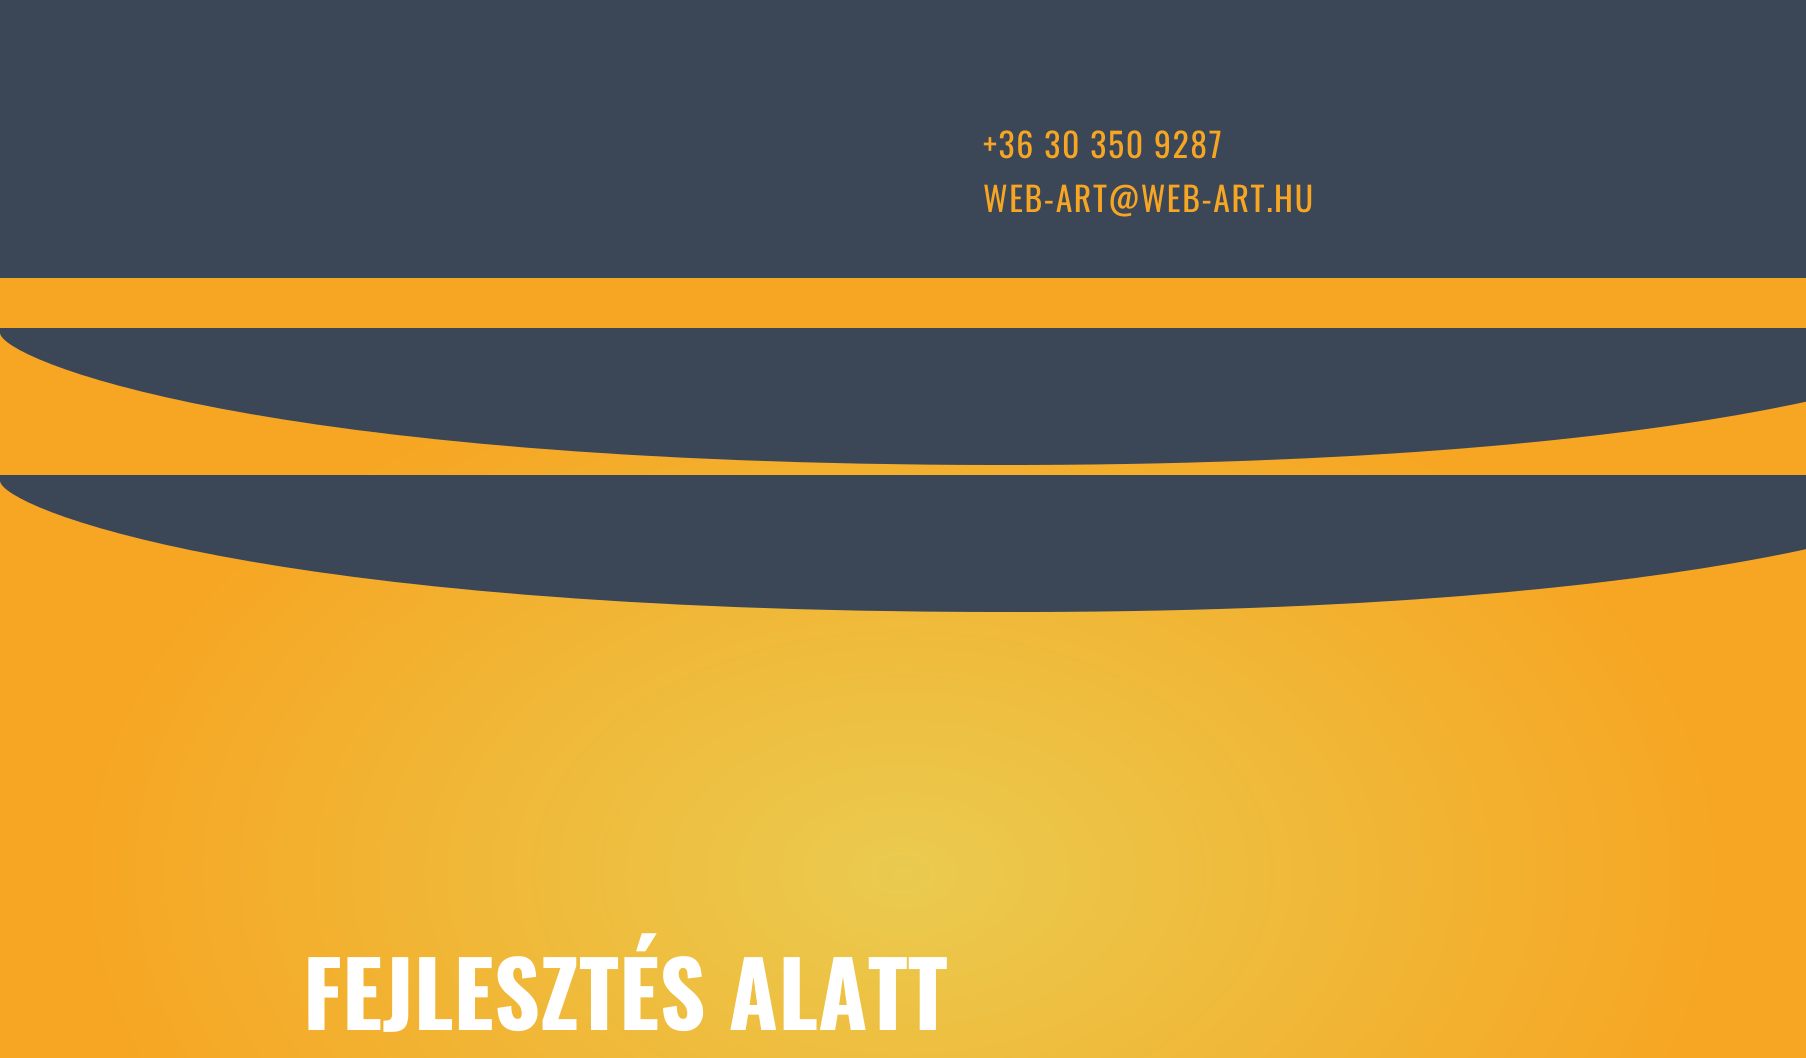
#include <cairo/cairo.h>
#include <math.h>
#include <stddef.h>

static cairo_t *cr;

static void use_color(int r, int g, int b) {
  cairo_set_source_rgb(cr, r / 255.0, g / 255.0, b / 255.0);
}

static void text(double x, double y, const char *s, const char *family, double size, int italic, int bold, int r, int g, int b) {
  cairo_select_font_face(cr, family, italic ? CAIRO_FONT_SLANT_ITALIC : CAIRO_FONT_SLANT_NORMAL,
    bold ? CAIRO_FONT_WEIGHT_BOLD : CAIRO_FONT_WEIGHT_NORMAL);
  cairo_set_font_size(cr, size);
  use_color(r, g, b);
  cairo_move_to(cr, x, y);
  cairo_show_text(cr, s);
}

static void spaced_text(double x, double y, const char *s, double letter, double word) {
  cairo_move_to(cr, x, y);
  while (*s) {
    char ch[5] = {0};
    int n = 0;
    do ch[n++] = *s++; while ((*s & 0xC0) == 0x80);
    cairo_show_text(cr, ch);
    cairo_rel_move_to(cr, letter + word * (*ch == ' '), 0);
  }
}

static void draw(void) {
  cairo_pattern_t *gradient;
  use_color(59, 70, 86);
  cairo_paint(cr);
  gradient = cairo_pattern_create_radial(0, 0, 0, 0, 0, 1);
  cairo_pattern_set_matrix(gradient, &(cairo_matrix_t){1.0 / 1277, 0, 0, 1.0 / 844, -1.0 * 903 / 1277, -1.0 * 874 / 844});
  cairo_pattern_add_color_stop_rgba(gradient, 0, 0.918, 0.796, 0.31, 1);
  cairo_pattern_add_color_stop_rgba(gradient, 0.64, 0.965, 0.651, 0.137, 1);
  cairo_set_source(cr, gradient);
  cairo_pattern_destroy(gradient);
  cairo_rectangle(cr, 0, 278, 1806, 780);
  cairo_fill(cr);
  use_color(59, 70, 86);
  cairo_new_path(cr);
  cairo_move_to(cr, 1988, 333);
  cairo_line_to(cr, 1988, 328);
  cairo_line_to(cr, 0, 328);
  cairo_line_to(cr, 0, 333);
  cairo_curve_to(cr, 2, 359, 252, 464, 994, 465);
  cairo_curve_to(cr, 1737, 466, 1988, 359, 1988, 333);
  cairo_close_path(cr);
  cairo_fill(cr);
  cairo_new_path(cr);
  cairo_move_to(cr, 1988, 481);
  cairo_line_to(cr, 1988, 475);
  cairo_line_to(cr, 0, 475);
  cairo_line_to(cr, 0, 481);
  cairo_curve_to(cr, 2, 507, 252, 611, 994, 612);
  cairo_curve_to(cr, 1737, 614, 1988, 506, 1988, 481);
  cairo_close_path(cr);
  cairo_fill(cr);
  cairo_select_font_face(cr, "Oswald", CAIRO_FONT_SLANT_NORMAL, CAIRO_FONT_WEIGHT_NORMAL);
  cairo_set_font_size(cr, 33.75);
  use_color(246, 166, 35);
  spaced_text(983, 158, "+36 30 350 9287", 1.6, 0);
  spaced_text(983, 212, "WEB-ART@WEB-ART.HU", 1.6, 0);
  text(303, 1030, "FEJLESZTÉS ALATT", "Oswald", 90, 0, 1, 255, 255, 255);
}

int main(void) {
  cairo_surface_t *surface = cairo_image_surface_create(CAIRO_FORMAT_RGB24, 1806, 1058);
  cr = cairo_create(surface);
  cairo_font_options_t *options = cairo_font_options_create();
  cairo_font_options_set_hint_metrics(options, CAIRO_HINT_METRICS_OFF);
  cairo_font_options_set_hint_style(options, CAIRO_HINT_STYLE_NONE);
  cairo_set_font_options(cr, options);
  cairo_set_miter_limit(cr, 4);
  draw();
  cairo_surface_write_to_png(surface, "out.png");
  cairo_font_options_destroy(options);
  cairo_destroy(cr);
  cairo_surface_destroy(surface);
  return 0;
}
